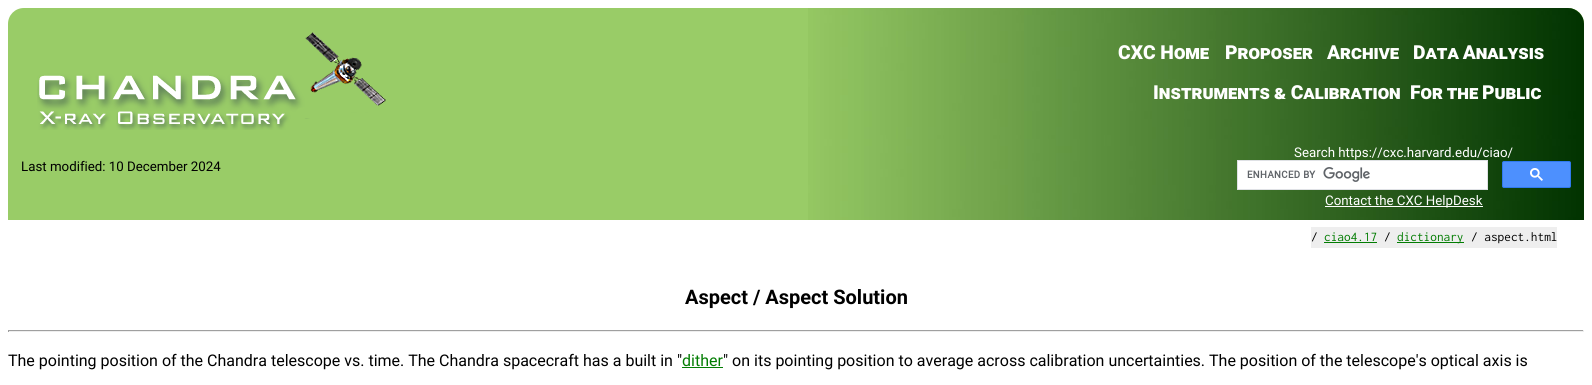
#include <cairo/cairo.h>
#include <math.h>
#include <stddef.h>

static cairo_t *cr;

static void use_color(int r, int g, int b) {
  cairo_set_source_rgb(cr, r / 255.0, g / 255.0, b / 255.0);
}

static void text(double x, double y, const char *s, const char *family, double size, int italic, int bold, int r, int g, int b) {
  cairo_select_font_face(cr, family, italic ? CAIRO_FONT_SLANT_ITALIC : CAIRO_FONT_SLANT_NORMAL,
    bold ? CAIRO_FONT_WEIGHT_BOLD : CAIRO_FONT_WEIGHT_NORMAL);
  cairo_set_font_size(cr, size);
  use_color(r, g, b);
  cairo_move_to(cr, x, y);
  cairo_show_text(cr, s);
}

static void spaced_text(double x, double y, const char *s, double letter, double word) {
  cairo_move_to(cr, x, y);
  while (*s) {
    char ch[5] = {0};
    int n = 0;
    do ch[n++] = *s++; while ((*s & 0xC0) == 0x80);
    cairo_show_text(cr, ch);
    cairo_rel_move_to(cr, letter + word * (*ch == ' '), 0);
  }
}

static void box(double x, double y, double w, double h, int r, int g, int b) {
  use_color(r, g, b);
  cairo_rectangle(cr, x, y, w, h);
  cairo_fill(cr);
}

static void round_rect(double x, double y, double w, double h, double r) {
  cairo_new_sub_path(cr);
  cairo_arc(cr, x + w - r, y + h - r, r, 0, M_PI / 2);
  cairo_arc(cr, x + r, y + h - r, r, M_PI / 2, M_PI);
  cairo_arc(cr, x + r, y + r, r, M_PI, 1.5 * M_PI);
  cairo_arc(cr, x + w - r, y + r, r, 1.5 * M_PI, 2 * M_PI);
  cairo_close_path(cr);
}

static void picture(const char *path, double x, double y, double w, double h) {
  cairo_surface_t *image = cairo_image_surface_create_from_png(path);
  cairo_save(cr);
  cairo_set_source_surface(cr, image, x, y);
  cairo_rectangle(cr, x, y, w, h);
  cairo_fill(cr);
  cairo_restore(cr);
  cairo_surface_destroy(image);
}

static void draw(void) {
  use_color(255, 255, 255);
  cairo_paint(cr);
  use_color(153, 204, 103);
  cairo_new_path(cr);
  cairo_move_to(cr, 24, 8);
  cairo_line_to(cr, 1568, 8);
  cairo_curve_to(cr, 1577, 8, 1584, 15, 1584, 24);
  cairo_line_to(cr, 1584, 146);
  cairo_line_to(cr, 8, 146);
  cairo_line_to(cr, 8, 24);
  cairo_curve_to(cr, 8, 15, 15, 8, 24, 8);
  cairo_close_path(cr);
  cairo_fill(cr);
  picture("img_01.png", 808, 8, 776, 138);
  picture("img_02.png", 37, 32, 349, 98);
  box(8, 146, 800, 74, 153, 204, 103);
  picture("img_03.png", 808, 146, 776, 74);
  use_color(255, 255, 255);
  cairo_rectangle(cr, 1237.5, 160.5, 250, 29);
  cairo_fill_preserve(cr);
  use_color(223, 225, 229);
  cairo_set_line_width(cr, 1);
  cairo_stroke(cr);
  picture("img_04.png", 1247, 167, 123, 15);
  use_color(77, 144, 254);
  round_rect(1502.5, 161.5, 68, 26, 1.5);
  cairo_fill_preserve(cr);
  use_color(48, 121, 237);
  cairo_stroke(cr);
  picture("img_05.png", 1530, 168, 13, 13);
  box(1325, 206, 158, 1, 255, 255, 255);
  box(1311, 227, 246, 21, 238, 238, 238);
  box(1324, 242, 53, 1, 3, 125, 3);
  box(1397, 242, 67, 1, 3, 125, 3);
  box(8, 330, 1576, 1, 159, 159, 159);
  box(1583, 330, 1, 2, 238, 238, 238);
  box(8, 331, 1576, 1, 238, 238, 238);
  box(8, 330, 1, 2, 159, 159, 159);
  box(682, 367, 41, 1, 3, 125, 3);
  text(1118, 59, "CXC Home", "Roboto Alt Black", 19.25, 0, 0, 255, 255, 255);
  text(1225, 59, "Proposer", "Roboto Alt Black", 19.25, 0, 0, 255, 255, 255);
  text(1327, 59, "Archive", "Roboto Alt Black", 19.25, 0, 0, 255, 255, 255);
  spaced_text(1413, 59, "Data Analysis", 0, -1);
  spaced_text(1153, 99, "Instruments & Calibration", 0, -1);
  spaced_text(1410, 99, "For the Public", 0, -1);
  text(21, 171, "Last modified: 10 December 2024", "Roboto", 13.3, 0, 0, 0, 0, 0);
  text(1294, 157, "Search https://cxc.harvard.edu/ciao/", "Roboto", 13.3, 0, 0, 255, 255, 255);
  text(1325, 205, "Contact the CXC HelpDesk", "Roboto", 13.3, 0, 0, 255, 255, 255);
  text(1311, 241, "/", "Inconsolata", 13.3, 0, 0, 0, 0, 0);
  text(1324, 241, "ciao4.17", "Inconsolata", 13.3, 0, 0, 3, 125, 3);
  text(1384, 241, "/", "Inconsolata", 13.3, 0, 0, 0, 0, 0);
  text(1397, 241, "dictionary", "Inconsolata", 13.3, 0, 0, 3, 125, 3);
  text(1471, 241, "/ aspect.html", "Inconsolata", 13.3, 0, 0, 0, 0, 0);
  text(685, 304, "Aspect / Aspect Solution", "Roboto", 20, 0, 1, 0, 0, 0);
  text(8, 366, "The pointing position of the Chandra telescope vs. time. The Chandra spacecraft has a built in \"", "Roboto", 16, 0, 0, 0, 0, 0);
  text(682, 366, "dither", "Roboto", 16, 0, 0, 3, 125, 3);
  text(723, 366, "\" on its pointing position to average across calibration uncertainties. The position of the telescope's optical axis is", "Roboto", 16, 0, 0, 0, 0, 0);
}

int main(void) {
  cairo_surface_t *surface = cairo_image_surface_create(CAIRO_FORMAT_RGB24, 1592, 385);
  cr = cairo_create(surface);
  cairo_font_options_t *options = cairo_font_options_create();
  cairo_font_options_set_hint_metrics(options, CAIRO_HINT_METRICS_OFF);
  cairo_font_options_set_hint_style(options, CAIRO_HINT_STYLE_NONE);
  cairo_set_font_options(cr, options);
  cairo_set_miter_limit(cr, 4);
  draw();
  cairo_surface_write_to_png(surface, "out.png");
  cairo_font_options_destroy(options);
  cairo_destroy(cr);
  cairo_surface_destroy(surface);
  return 0;
}
